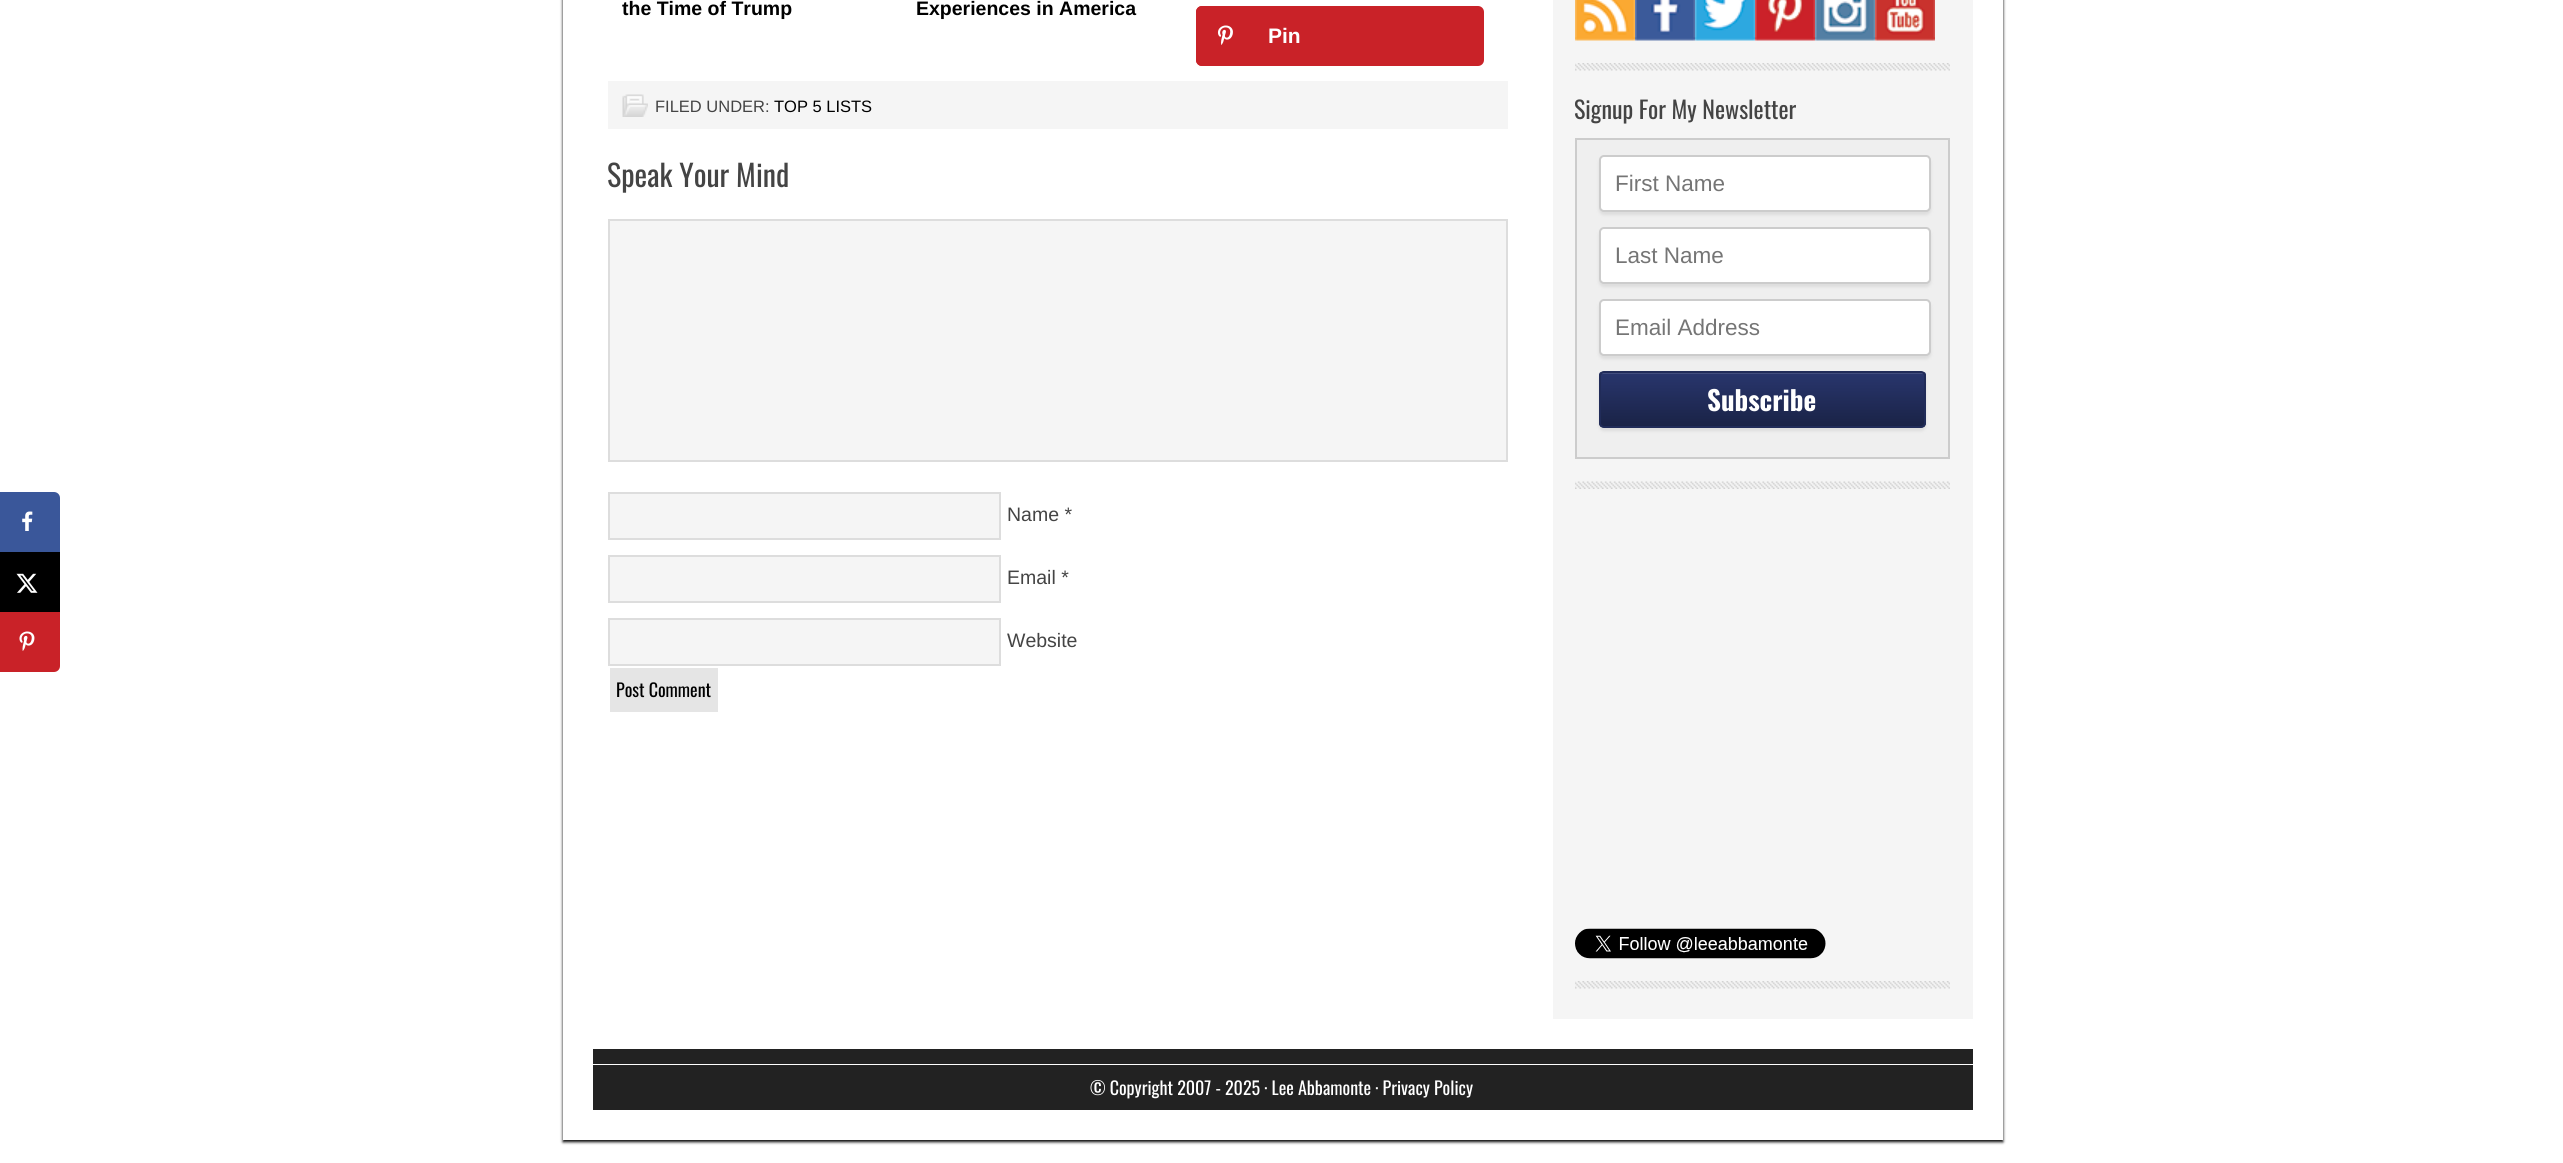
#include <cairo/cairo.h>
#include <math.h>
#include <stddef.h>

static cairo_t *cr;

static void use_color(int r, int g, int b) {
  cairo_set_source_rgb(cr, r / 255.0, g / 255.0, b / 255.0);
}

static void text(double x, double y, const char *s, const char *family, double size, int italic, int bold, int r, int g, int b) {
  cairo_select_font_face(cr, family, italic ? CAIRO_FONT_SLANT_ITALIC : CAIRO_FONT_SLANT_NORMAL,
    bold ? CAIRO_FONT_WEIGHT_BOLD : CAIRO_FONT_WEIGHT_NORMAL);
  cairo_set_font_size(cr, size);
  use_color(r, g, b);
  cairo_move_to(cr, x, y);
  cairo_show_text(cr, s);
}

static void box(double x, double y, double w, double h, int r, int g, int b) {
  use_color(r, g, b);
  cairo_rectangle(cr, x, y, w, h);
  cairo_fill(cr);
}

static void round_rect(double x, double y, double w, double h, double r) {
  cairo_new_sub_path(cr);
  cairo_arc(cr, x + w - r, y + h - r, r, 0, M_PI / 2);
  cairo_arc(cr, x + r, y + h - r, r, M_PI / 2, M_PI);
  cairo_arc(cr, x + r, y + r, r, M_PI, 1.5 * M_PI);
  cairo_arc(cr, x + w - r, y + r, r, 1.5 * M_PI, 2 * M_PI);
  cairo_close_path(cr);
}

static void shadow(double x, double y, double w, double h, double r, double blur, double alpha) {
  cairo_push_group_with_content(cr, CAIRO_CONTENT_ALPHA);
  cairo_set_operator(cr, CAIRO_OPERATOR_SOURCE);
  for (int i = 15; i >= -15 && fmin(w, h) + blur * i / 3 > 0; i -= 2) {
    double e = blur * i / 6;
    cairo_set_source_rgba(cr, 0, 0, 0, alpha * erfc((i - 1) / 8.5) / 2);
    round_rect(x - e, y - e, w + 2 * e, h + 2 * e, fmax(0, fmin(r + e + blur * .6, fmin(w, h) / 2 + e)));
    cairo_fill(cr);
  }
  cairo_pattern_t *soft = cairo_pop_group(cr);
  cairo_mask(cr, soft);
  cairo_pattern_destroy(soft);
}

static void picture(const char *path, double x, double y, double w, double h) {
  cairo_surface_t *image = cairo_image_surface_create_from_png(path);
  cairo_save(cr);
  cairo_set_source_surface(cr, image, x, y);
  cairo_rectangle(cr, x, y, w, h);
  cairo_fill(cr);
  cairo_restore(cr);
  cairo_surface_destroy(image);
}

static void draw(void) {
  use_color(255, 255, 255);
  cairo_paint(cr);
  use_color(58, 87, 154);
  cairo_new_path(cr);
  cairo_move_to(cr, 1.5, 493.5);
  cairo_line_to(cr, 54, 493.5);
  cairo_curve_to(cr, 56.5, 493.5, 58.5, 495.5, 58.5, 498);
  cairo_line_to(cr, 58.5, 550.5);
  cairo_line_to(cr, 1.5, 550.5);
  cairo_close_path(cr);
  cairo_fill_preserve(cr);
  cairo_set_line_width(cr, 3);
  cairo_stroke(cr);
  picture("img_01.png", 22, 511, 11, 20);
  box(0, 552, 60, 60, 0, 0, 0);
  picture("img_02.png", 16, 573, 22, 20);
  use_color(201, 34, 40);
  cairo_new_path(cr);
  cairo_move_to(cr, 1.5, 613.5);
  cairo_line_to(cr, 58.5, 613.5);
  cairo_line_to(cr, 58.5, 666);
  cairo_curve_to(cr, 58.5, 668.5, 56.5, 670.5, 54, 670.5);
  cairo_line_to(cr, 1.5, 670.5);
  cairo_close_path(cr);
  cairo_fill_preserve(cr);
  cairo_stroke(cr);
  picture("img_03.png", 19, 631, 16, 20);
  use_color(0, 0, 0);
  shadow(563, -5, 1440, 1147, 0, 1.5, 1);
  box(563, 0, 1440, 1140, 255, 255, 255);
  use_color(201, 34, 40);
  round_rect(1197.5, 7.5, 285, 57, 4.5);
  cairo_fill_preserve(cr);
  cairo_stroke(cr);
  cairo_new_path(cr);
  cairo_move_to(cr, 1202, 7.5);
  cairo_line_to(cr, 1254.5, 7.5);
  cairo_line_to(cr, 1254.5, 64.5);
  cairo_line_to(cr, 1202, 64.5);
  cairo_curve_to(cr, 1199.5, 64.5, 1197.5, 62.5, 1197.5, 60);
  cairo_line_to(cr, 1197.5, 12);
  cairo_curve_to(cr, 1197.5, 9.5, 1199.5, 7.5, 1202, 7.5);
  cairo_close_path(cr);
  cairo_fill_preserve(cr);
  cairo_stroke(cr);
  picture("img_04.png", 1217, 25, 16, 20);
  box(608, 81, 900, 48, 245, 245, 245);
  picture("img_05.png", 622, 94, 26, 23);
  cairo_rectangle(cr, 609, 220, 898, 241);
  cairo_fill_preserve(cr);
  use_color(221, 221, 221);
  cairo_set_line_width(cr, 2);
  cairo_stroke(cr);
  use_color(245, 245, 245);
  cairo_rectangle(cr, 609, 493, 391, 46);
  cairo_fill_preserve(cr);
  use_color(221, 221, 221);
  cairo_stroke(cr);
  use_color(245, 245, 245);
  cairo_rectangle(cr, 609, 556, 391, 46);
  cairo_fill_preserve(cr);
  use_color(221, 221, 221);
  cairo_stroke(cr);
  use_color(245, 245, 245);
  cairo_rectangle(cr, 609, 619, 391, 46);
  cairo_fill_preserve(cr);
  use_color(221, 221, 221);
  cairo_stroke(cr);
  box(610, 668, 108, 44, 229, 229, 229);
  box(1553, 0, 420, 1019, 245, 245, 245);
  picture("img_06.png", 1575, 63, 375, 8);
  picture("img_07.png", 1575, 0, 60, 41);
  picture("img_08.png", 1635, 0, 60, 41);
  picture("img_09.png", 1695, 0, 60, 41);
  picture("img_10.png", 1755, 0, 60, 41);
  picture("img_11.png", 1815, 0, 60, 41);
  picture("img_12.png", 1875, 0, 60, 41);
  picture("img_13.png", 1575, 481, 375, 8);
  use_color(239, 239, 239);
  cairo_rectangle(cr, 1576, 139, 373, 319);
  cairo_fill_preserve(cr);
  use_color(204, 204, 204);
  cairo_stroke(cr);
  use_color(221, 221, 221);
  shadow(1599, 158, 332, 57, 5, 1.5, 1);
  use_color(255, 255, 255);
  round_rect(1600, 156, 330, 55, 4);
  cairo_fill_preserve(cr);
  use_color(204, 204, 204);
  cairo_stroke(cr);
  use_color(221, 221, 221);
  shadow(1599, 230, 332, 57, 5, 1.5, 1);
  use_color(255, 255, 255);
  round_rect(1600, 228, 330, 55, 4);
  cairo_fill_preserve(cr);
  use_color(204, 204, 204);
  cairo_stroke(cr);
  use_color(221, 221, 221);
  shadow(1599, 302, 332, 57, 5, 1.5, 1);
  use_color(255, 255, 255);
  round_rect(1600, 300, 330, 55, 4);
  cairo_fill_preserve(cr);
  use_color(204, 204, 204);
  cairo_stroke(cr);
  use_color(221, 221, 221);
  shadow(1599, 374, 327, 57, 5, 1.5, 1);
  picture("img_14.png", 1599, 372, 327, 56);
  round_rect(1600, 372, 325, 55, 4);
  use_color(33, 44, 89);
  cairo_stroke(cr);
  picture("img_15.png", 1575, 981, 375, 8);
  picture("img_16.png", 1575, 928, 251, 31);
  box(593, 1049, 1380, 15, 34, 34, 34);
  box(593, 1065, 1380, 45, 34, 34, 34);
  text(622, 15, "the Time of Trump", "Liberation Sans", 19.5, 0, 1, 0, 0, 0);
  text(916, 15, "Experiences in America", "Liberation Sans", 19.5, 0, 1, 0, 0, 0);
  text(1268, 43, "Pin", "Liberation Sans", 21, 0, 1, 255, 255, 255);
  text(655, 112, "FILED UNDER:", "Liberation Sans", 16.5, 0, 0, 68, 68, 68);
  text(774, 112, "TOP 5 LISTS", "Liberation Sans", 16.5, 0, 0, 0, 0, 0);
  text(607, 187, "Speak Your Mind", "Oswald", 30, 0, 0, 68, 68, 68);
  text(1007, 521, "Name *", "Liberation Sans", 19.5, 0, 0, 68, 68, 68);
  text(1007, 584, "Email *", "Liberation Sans", 19.5, 0, 0, 68, 68, 68);
  text(1007, 647, "Website", "Liberation Sans", 19.5, 0, 0, 68, 68, 68);
  text(616, 697, "Post Comment", "Oswald", 18, 0, 0, 0, 0, 0);
  text(1574, 119, "Signup For My Newsletter", "Oswald", 24, 0, 0, 68, 68, 68);
  text(1615, 191, "First Name", "Liberation Sans", 22.5, 0, 0, 117, 117, 117);
  text(1615, 263, "Last Name", "Liberation Sans", 22.5, 0, 0, 117, 117, 117);
  text(1615, 335, "Email Address", "Liberation Sans", 22.5, 0, 0, 117, 117, 117);
  text(1707, 411, "Subscribe", "Oswald", 27, 0, 1, 255, 255, 255);
  text(1090, 1095, "© Copyright 2007 - 2025 · Lee Abbamonte · Privacy Policy", "Oswald", 18, 0, 0, 255, 255, 255);
}

int main(void) {
  cairo_surface_t *surface = cairo_image_surface_create(CAIRO_FORMAT_RGB24, 2563, 1163);
  cr = cairo_create(surface);
  cairo_font_options_t *options = cairo_font_options_create();
  cairo_font_options_set_hint_metrics(options, CAIRO_HINT_METRICS_OFF);
  cairo_font_options_set_hint_style(options, CAIRO_HINT_STYLE_NONE);
  cairo_set_font_options(cr, options);
  cairo_set_miter_limit(cr, 4);
  draw();
  cairo_surface_write_to_png(surface, "out.png");
  cairo_font_options_destroy(options);
  cairo_destroy(cr);
  cairo_surface_destroy(surface);
  return 0;
}
